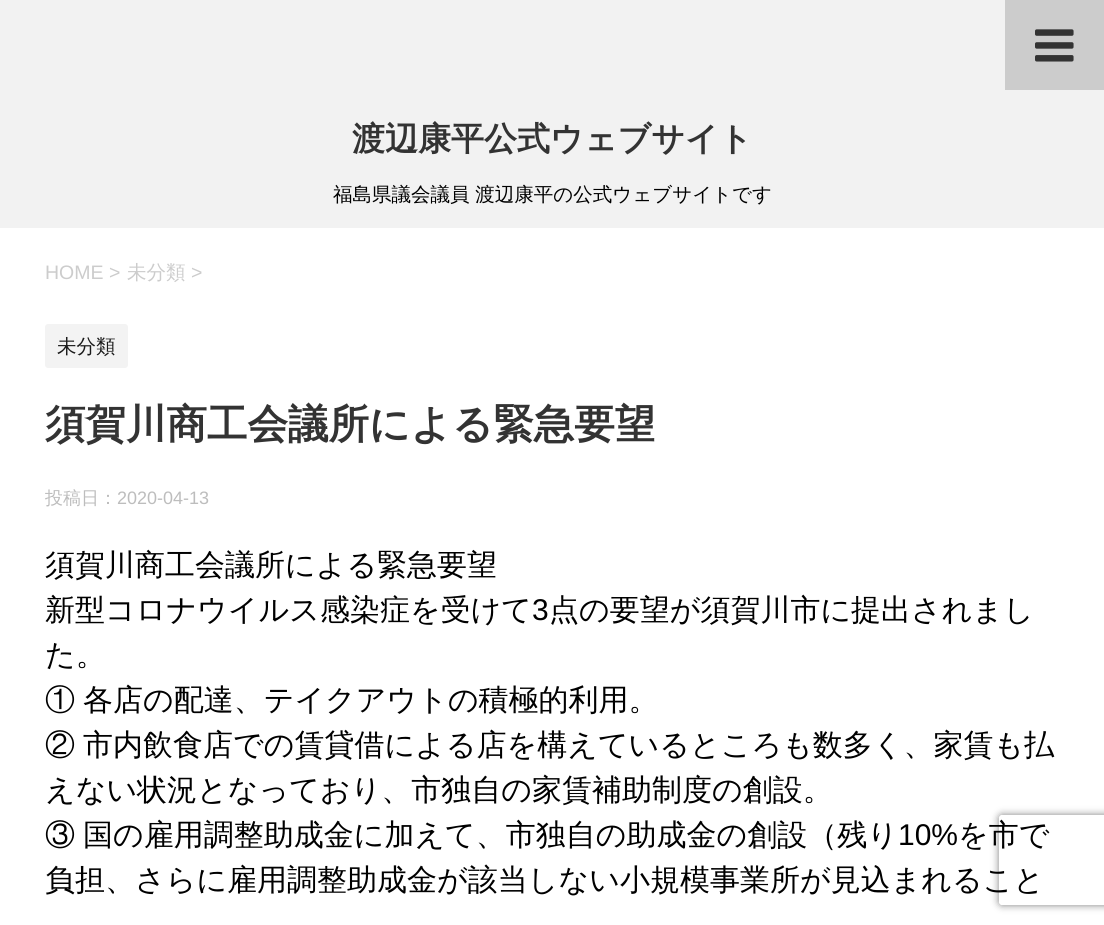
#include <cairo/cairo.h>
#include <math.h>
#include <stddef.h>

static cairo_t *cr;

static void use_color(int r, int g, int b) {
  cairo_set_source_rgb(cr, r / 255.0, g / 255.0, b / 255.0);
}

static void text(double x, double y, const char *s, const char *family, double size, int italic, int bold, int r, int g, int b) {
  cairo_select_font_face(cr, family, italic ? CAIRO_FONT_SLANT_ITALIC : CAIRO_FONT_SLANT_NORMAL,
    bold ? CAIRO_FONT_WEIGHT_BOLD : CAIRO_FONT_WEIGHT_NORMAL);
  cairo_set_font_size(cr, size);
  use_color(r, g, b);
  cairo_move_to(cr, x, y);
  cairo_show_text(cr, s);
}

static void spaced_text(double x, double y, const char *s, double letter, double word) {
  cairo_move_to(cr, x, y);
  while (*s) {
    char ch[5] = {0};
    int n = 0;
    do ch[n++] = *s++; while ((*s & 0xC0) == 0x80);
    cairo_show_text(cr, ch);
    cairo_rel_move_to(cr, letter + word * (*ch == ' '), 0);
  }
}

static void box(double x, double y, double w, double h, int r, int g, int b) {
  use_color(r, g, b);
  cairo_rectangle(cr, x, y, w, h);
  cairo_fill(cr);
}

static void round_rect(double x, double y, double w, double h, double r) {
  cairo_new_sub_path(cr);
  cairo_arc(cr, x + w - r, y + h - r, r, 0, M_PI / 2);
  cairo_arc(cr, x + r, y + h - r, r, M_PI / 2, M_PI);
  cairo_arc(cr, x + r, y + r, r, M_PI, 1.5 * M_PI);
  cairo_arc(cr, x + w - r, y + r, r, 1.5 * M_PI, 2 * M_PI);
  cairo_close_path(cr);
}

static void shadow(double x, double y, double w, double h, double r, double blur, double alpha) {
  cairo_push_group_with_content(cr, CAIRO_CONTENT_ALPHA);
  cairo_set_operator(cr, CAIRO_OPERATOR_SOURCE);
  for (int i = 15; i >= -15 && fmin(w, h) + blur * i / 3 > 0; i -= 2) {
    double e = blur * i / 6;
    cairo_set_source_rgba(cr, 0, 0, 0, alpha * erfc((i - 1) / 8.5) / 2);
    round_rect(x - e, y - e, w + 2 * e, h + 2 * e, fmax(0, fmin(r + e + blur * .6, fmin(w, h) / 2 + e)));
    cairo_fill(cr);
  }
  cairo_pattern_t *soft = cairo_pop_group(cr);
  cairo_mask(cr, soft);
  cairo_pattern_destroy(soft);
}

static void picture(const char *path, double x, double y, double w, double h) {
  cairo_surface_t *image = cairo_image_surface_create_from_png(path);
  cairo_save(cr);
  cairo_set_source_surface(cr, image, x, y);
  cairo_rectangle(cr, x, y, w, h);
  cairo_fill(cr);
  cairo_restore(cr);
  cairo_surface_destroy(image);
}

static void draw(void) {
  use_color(242, 242, 242);
  cairo_paint(cr);
  box(1005, 0, 99, 90, 204, 204, 204);
  picture("img_01.png", 1035, 29, 39, 33);
  box(0, 228, 1104, 697, 255, 255, 255);
  use_color(243, 243, 243);
  round_rect(45, 324, 83, 44, 3);
  cairo_fill(cr);
  cairo_save(cr);
  cairo_set_fill_rule(cr, CAIRO_FILL_RULE_EVEN_ODD);
  cairo_new_path(cr);
  cairo_move_to(cr, 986, 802);
  cairo_line_to(cr, 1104, 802);
  cairo_line_to(cr, 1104, 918);
  cairo_line_to(cr, 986, 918);
  cairo_close_path(cr);
  cairo_move_to(cr, 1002, 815);
  cairo_line_to(cr, 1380, 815);
  cairo_curve_to(cr, 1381.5, 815, 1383, 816.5, 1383, 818);
  cairo_line_to(cr, 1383, 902);
  cairo_curve_to(cr, 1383, 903.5, 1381.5, 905, 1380, 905);
  cairo_line_to(cr, 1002, 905);
  cairo_curve_to(cr, 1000.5, 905, 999, 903.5, 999, 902);
  cairo_line_to(cr, 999, 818);
  cairo_curve_to(cr, 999, 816.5, 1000.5, 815, 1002, 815);
  cairo_close_path(cr);
  cairo_clip(cr);
  use_color(128, 128, 128);
  shadow(999, 815, 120, 90, 3, 4, 1);
  cairo_restore(cr);
  text(352, 150, "渡辺康平公式ウェブサイト", "WenQuanYi Zen Hei", 33, 0, 1, 51, 51, 51);
  text(333, 201, "福島県議会議員 渡辺康平の公式ウェブサイトです", "WenQuanYi Zen Hei Medium", 19.5, 0, 0, 0, 0, 0);
  text(45, 279, "HOME >", "Liberation Sans", 19.5, 0, 0, 204, 204, 204);
  text(127, 279, "未分類", "WenQuanYi Zen Hei Medium", 19.5, 0, 0, 204, 204, 204);
  text(191, 279, ">", "Liberation Sans", 19.5, 0, 0, 204, 204, 204);
  text(57, 353, "未分類", "WenQuanYi Zen Hei Medium", 19.5, 0, 0, 26, 26, 26);
  text(45, 438, "須賀川商工会議所による緊急要望", "WenQuanYi Zen Hei", 40.5, 0, 1, 51, 51, 51);
  text(45, 504, "投稿日：", "WenQuanYi Zen Hei Medium", 18, 0, 0, 189, 189, 189);
  text(117, 504, "2020-04-13", "Liberation Sans", 18, 0, 0, 189, 189, 189);
  text(45, 575, "須賀川商工会議所による緊急要望", "WenQuanYi Zen Hei Medium", 30, 0, 0, 0, 0, 0);
  text(45, 620, "新型コロナウイルス感染症を受けて", "WenQuanYi Zen Hei Medium", 30, 0, 0, 0, 0, 0);
  text(532, 620, "3", "Liberation Sans", 30, 0, 0, 0, 0, 0);
  text(549, 620, "点の要望が須賀川市に提出されまし", "WenQuanYi Zen Hei Medium", 30, 0, 0, 0, 0, 0);
  text(45, 665, "た。", "WenQuanYi Zen Hei Medium", 30, 0, 0, 0, 0, 0);
  spaced_text(45, 710, "① 各店の配達、テイクアウトの積極的利用。", 0, -1);
  spaced_text(45, 755, "② 市内飲食店での賃貸借による店を構えているところも数多く、家賃も払", 0, -1);
  text(45, 800, "えない状況となっており、市独自の家賃補助制度の創設。", "WenQuanYi Zen Hei Medium", 30, 0, 0, 0, 0, 0);
  spaced_text(45, 845, "③ 国の雇用調整助成金に加えて、市独自の助成金の創設（残り", 0, -1);
  text(898, 845, "10%", "Liberation Sans", 30, 0, 0, 0, 0, 0);
  text(958, 845, "を市で", "WenQuanYi Zen Hei Medium", 30, 0, 0, 0, 0, 0);
  text(45, 890, "負担、さらに雇用調整助成金が該当しない小規模事業所が見込まれること", "WenQuanYi Zen Hei Medium", 30, 0, 0, 0, 0, 0);
}

int main(void) {
  cairo_surface_t *surface = cairo_image_surface_create(CAIRO_FORMAT_RGB24, 1104, 925);
  cr = cairo_create(surface);
  cairo_font_options_t *options = cairo_font_options_create();
  cairo_font_options_set_hint_metrics(options, CAIRO_HINT_METRICS_OFF);
  cairo_font_options_set_hint_style(options, CAIRO_HINT_STYLE_NONE);
  cairo_set_font_options(cr, options);
  cairo_set_miter_limit(cr, 4);
  draw();
  cairo_surface_write_to_png(surface, "out.png");
  cairo_font_options_destroy(options);
  cairo_destroy(cr);
  cairo_surface_destroy(surface);
  return 0;
}
